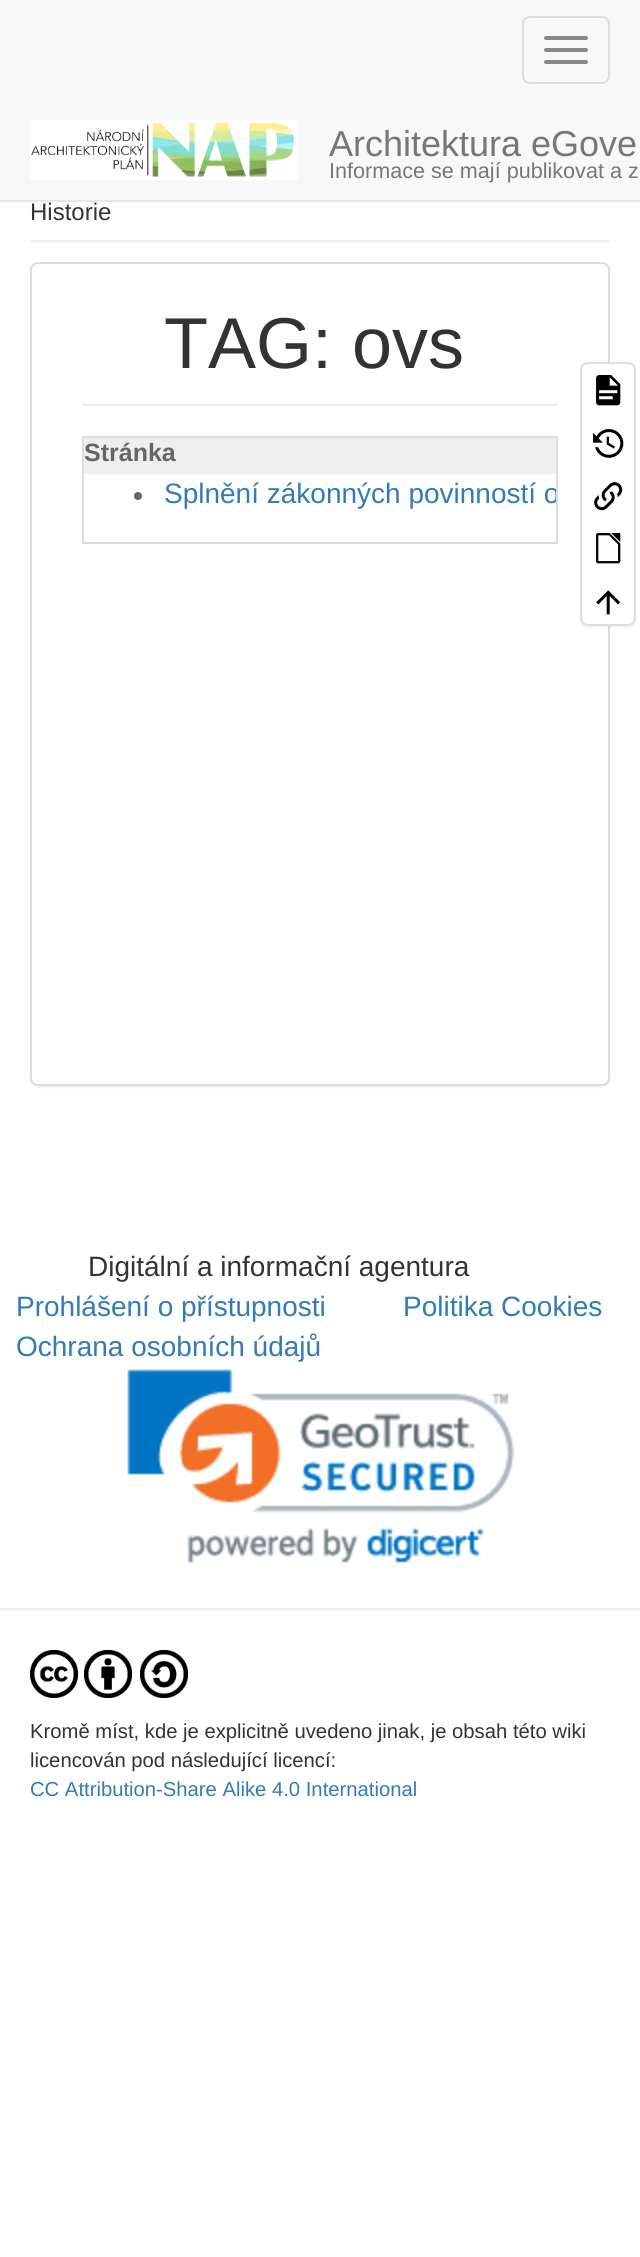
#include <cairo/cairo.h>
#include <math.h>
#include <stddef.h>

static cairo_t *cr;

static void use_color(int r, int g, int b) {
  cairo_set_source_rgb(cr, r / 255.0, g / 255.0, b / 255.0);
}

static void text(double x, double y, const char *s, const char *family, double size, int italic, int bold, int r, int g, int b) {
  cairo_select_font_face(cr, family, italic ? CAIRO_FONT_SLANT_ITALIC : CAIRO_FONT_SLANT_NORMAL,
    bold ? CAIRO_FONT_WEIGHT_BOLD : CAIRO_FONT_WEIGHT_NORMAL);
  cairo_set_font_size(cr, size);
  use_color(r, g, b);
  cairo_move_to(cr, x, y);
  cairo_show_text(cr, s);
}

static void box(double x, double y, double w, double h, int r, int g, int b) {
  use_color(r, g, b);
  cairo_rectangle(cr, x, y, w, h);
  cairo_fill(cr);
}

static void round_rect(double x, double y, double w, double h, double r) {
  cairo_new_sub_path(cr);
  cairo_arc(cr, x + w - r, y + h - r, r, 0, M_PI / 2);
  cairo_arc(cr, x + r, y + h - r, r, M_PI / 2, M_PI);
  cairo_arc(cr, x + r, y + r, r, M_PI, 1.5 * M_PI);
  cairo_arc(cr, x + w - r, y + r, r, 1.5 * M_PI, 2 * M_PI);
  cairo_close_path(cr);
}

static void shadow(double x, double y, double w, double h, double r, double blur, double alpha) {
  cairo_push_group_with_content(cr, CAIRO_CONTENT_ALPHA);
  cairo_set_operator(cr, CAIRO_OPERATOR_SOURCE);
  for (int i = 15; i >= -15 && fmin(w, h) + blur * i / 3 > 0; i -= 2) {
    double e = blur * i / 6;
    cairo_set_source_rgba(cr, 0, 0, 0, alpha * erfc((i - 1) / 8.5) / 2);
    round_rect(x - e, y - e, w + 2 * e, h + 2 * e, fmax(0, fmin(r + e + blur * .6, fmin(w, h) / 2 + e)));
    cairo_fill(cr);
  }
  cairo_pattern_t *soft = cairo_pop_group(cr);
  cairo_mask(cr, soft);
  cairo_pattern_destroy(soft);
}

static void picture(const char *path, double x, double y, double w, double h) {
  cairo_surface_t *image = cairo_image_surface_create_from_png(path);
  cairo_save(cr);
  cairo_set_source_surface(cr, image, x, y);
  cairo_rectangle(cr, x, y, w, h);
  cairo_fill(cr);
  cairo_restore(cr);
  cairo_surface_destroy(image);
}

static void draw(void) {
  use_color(255, 255, 255);
  cairo_paint(cr);
  box(0, 0, 640, 200, 248, 248, 248);
  box(0, 200, 640, 2, 231, 231, 231);
  round_rect(523, 17, 86, 66, 7);
  use_color(221, 221, 221);
  cairo_stroke(cr);
  use_color(136, 136, 136);
  round_rect(544, 36, 44, 4, 2);
  cairo_fill(cr);
  round_rect(544, 48, 44, 4, 2);
  cairo_fill(cr);
  round_rect(544, 60, 44, 4, 2);
  cairo_fill(cr);
  picture("img_01.png", 30, 120, 268, 60);
  box(30, 240, 580, 2, 238, 238, 238);
  use_color(0, 0, 0);
  shadow(30, 264, 580, 824, 8, 1, 0.05);
  use_color(255, 255, 255);
  round_rect(31, 263, 578, 822, 7);
  cairo_fill_preserve(cr);
  use_color(221, 221, 221);
  cairo_stroke(cr);
  box(82, 404, 476, 2, 238, 238, 238);
  cairo_rectangle(cr, 83, 437, 474, 106);
  use_color(221, 221, 221);
  cairo_stroke(cr);
  box(84, 438, 472, 36, 238, 238, 238);
  use_color(102, 102, 102);
  cairo_arc(cr, 138, 496, 4, 0, 2 * M_PI);
  cairo_fill(cr);
  use_color(0, 0, 0);
  shadow(580, 364, 56, 264, 8, 1, 0.05);
  use_color(255, 255, 255);
  round_rect(581, 363, 54, 262, 7);
  cairo_fill_preserve(cr);
  use_color(221, 221, 221);
  cairo_stroke(cr);
  picture("img_02.png", 596, 375, 25, 31);
  picture("img_03.png", 593, 429, 31, 29);
  picture("img_04.png", 594, 482, 29, 29);
  picture("img_05.png", 596, 533, 25, 31);
  picture("img_06.png", 596, 590, 25, 25);
  picture("img_07.png", 127, 1369, 388, 194);
  box(0, 1608, 640, 2, 238, 238, 238);
  picture("img_08.png", 30, 1650, 48, 48);
  picture("img_09.png", 84, 1650, 48, 48);
  picture("img_10.png", 140, 1650, 48, 48);
  text(329, 156, "Architektura eGove", "Liberation Sans", 36, 0, 0, 119, 119, 119);
  text(329, 178, "Informace se mají publikovat a z", "Liberation Sans", 21.6, 0, 0, 119, 119, 119);
  text(30, 220, "Historie", "Liberation Sans", 24, 0, 0, 51, 51, 51);
  text(164, 368, "TAG: ovs", "Liberation Sans", 72, 0, 0, 51, 51, 51);
  text(84, 461, "Stránka", "Liberation Sans", 25, 0, 1, 102, 102, 102);
  cairo_save(cr);
  cairo_rectangle(cr, 84, 474, 472, 40);
  cairo_clip(cr);
  text(164, 503, "Splnění zákonných povinností o", "Liberation Sans", 28, 0, 0, 51, 122, 183);
  cairo_restore(cr);
  text(88, 1276, "Digitální a informační agentura", "Liberation Sans", 28, 0, 0, 51, 51, 51);
  text(16, 1316, "Prohlášení o přístupnosti", "Liberation Sans", 28, 0, 0, 51, 122, 183);
  text(403, 1316, "Politika Cookies", "Liberation Sans", 28, 0, 0, 51, 122, 183);
  text(16, 1356, "Ochrana osobních údajů", "Liberation Sans", 28, 0, 0, 51, 122, 183);
  text(30, 1738, "Kromě míst, kde je explicitně uvedeno jinak, je obsah této wiki", "Liberation Sans", 20.25, 0, 0, 51, 51, 51);
  text(30, 1767, "licencován pod následující licencí:", "Liberation Sans", 20.25, 0, 0, 51, 51, 51);
  text(30, 1796, "CC Attribution-Share Alike 4.0 International", "Liberation Sans", 20.25, 0, 0, 51, 122, 183);
}

int main(void) {
  cairo_surface_t *surface = cairo_image_surface_create(CAIRO_FORMAT_RGB24, 640, 2257);
  cr = cairo_create(surface);
  cairo_font_options_t *options = cairo_font_options_create();
  cairo_font_options_set_hint_metrics(options, CAIRO_HINT_METRICS_OFF);
  cairo_font_options_set_hint_style(options, CAIRO_HINT_STYLE_NONE);
  cairo_set_font_options(cr, options);
  cairo_set_miter_limit(cr, 4);
  draw();
  cairo_surface_write_to_png(surface, "out.png");
  cairo_font_options_destroy(options);
  cairo_destroy(cr);
  cairo_surface_destroy(surface);
  return 0;
}
